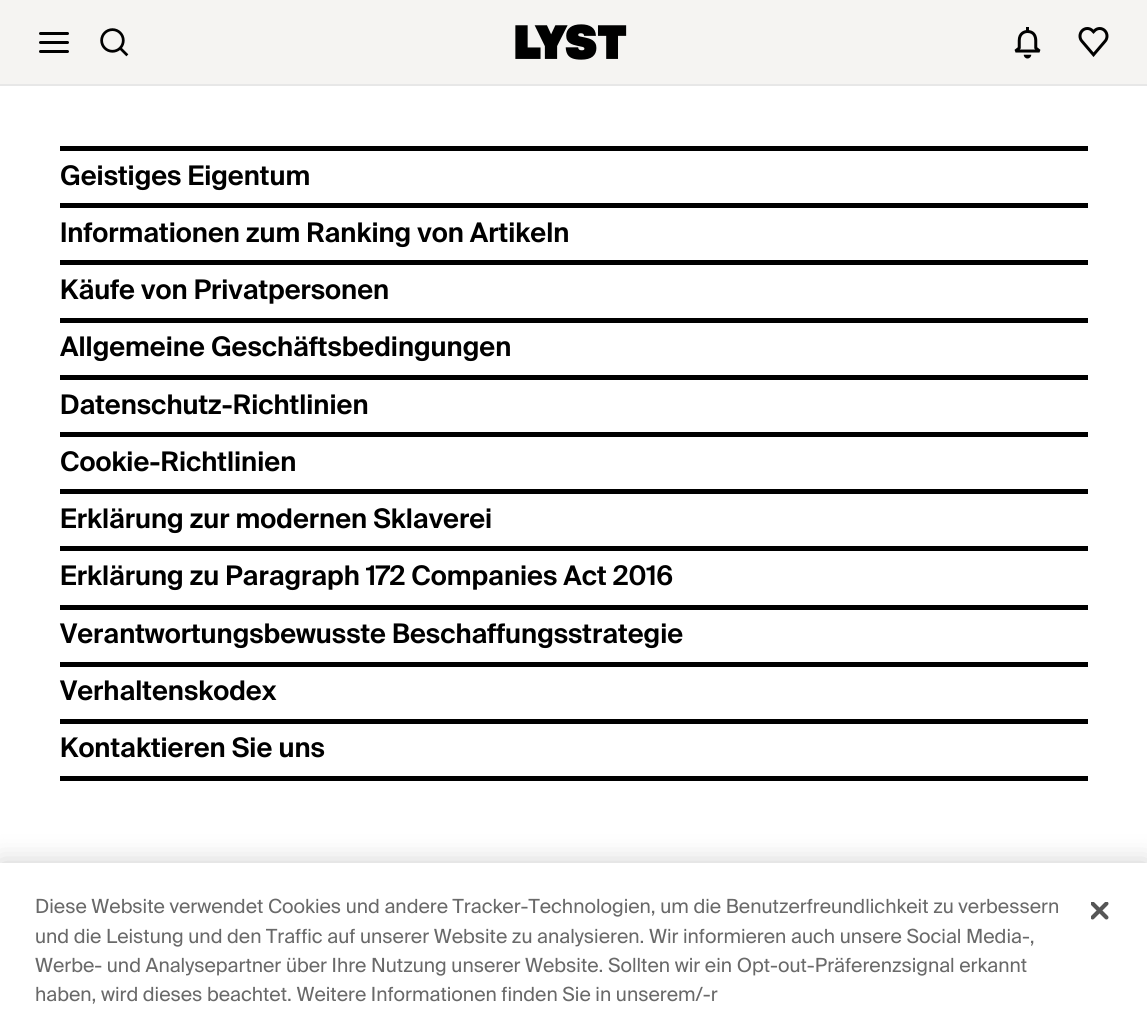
#include <cairo/cairo.h>
#include <math.h>
#include <stddef.h>

static cairo_t *cr;

static void use_color(int r, int g, int b) {
  cairo_set_source_rgb(cr, r / 255.0, g / 255.0, b / 255.0);
}

static void text(double x, double y, const char *s, const char *family, double size, int italic, int bold, int r, int g, int b) {
  cairo_select_font_face(cr, family, italic ? CAIRO_FONT_SLANT_ITALIC : CAIRO_FONT_SLANT_NORMAL,
    bold ? CAIRO_FONT_WEIGHT_BOLD : CAIRO_FONT_WEIGHT_NORMAL);
  cairo_set_font_size(cr, size);
  use_color(r, g, b);
  cairo_move_to(cr, x, y);
  cairo_show_text(cr, s);
}

static void box(double x, double y, double w, double h, int r, int g, int b) {
  use_color(r, g, b);
  cairo_rectangle(cr, x, y, w, h);
  cairo_fill(cr);
}

static void round_rect(double x, double y, double w, double h, double r) {
  cairo_new_sub_path(cr);
  cairo_arc(cr, x + w - r, y + h - r, r, 0, M_PI / 2);
  cairo_arc(cr, x + r, y + h - r, r, M_PI / 2, M_PI);
  cairo_arc(cr, x + r, y + r, r, M_PI, 1.5 * M_PI);
  cairo_arc(cr, x + w - r, y + r, r, 1.5 * M_PI, 2 * M_PI);
  cairo_close_path(cr);
}

static void shadow(double x, double y, double w, double h, double r, double blur, double alpha) {
  cairo_push_group_with_content(cr, CAIRO_CONTENT_ALPHA);
  cairo_set_operator(cr, CAIRO_OPERATOR_SOURCE);
  for (int i = 15; i >= -15 && fmin(w, h) + blur * i / 3 > 0; i -= 2) {
    double e = blur * i / 6;
    cairo_set_source_rgba(cr, 0, 0, 0, alpha * erfc((i - 1) / 8.5) / 2);
    round_rect(x - e, y - e, w + 2 * e, h + 2 * e, fmax(0, fmin(r + e + blur * .6, fmin(w, h) / 2 + e)));
    cairo_fill(cr);
  }
  cairo_pattern_t *soft = cairo_pop_group(cr);
  cairo_mask(cr, soft);
  cairo_pattern_destroy(soft);
}

static void picture(const char *path, double x, double y, double w, double h) {
  cairo_surface_t *image = cairo_image_surface_create_from_png(path);
  cairo_save(cr);
  cairo_set_source_surface(cr, image, x, y);
  cairo_rectangle(cr, x, y, w, h);
  cairo_fill(cr);
  cairo_restore(cr);
  cairo_surface_destroy(image);
}

static void draw(void) {
  use_color(255, 255, 255);
  cairo_paint(cr);
  box(0, 0, 1147, 84, 245, 244, 242);
  box(0, 84, 1147, 2, 231, 231, 231);
  use_color(0, 0, 0);
  round_rect(39, 32, 30, 3, 1.5);
  cairo_fill(cr);
  round_rect(39, 41, 30, 3, 1.5);
  cairo_fill(cr);
  round_rect(39, 50, 30, 3, 1.5);
  cairo_fill(cr);
  picture("img_01.png", 100, 28, 29, 29);
  picture("img_02.png", 515, 24, 112, 36);
  picture("img_03.png", 1014, 27, 27, 32);
  picture("img_04.png", 1078, 27, 31, 30);
  box(60, 146, 1028, 5, 0, 0, 0);
  box(60, 203, 1028, 5, 0, 0, 0);
  box(60, 260, 1028, 5, 0, 0, 0);
  box(60, 318, 1028, 5, 0, 0, 0);
  box(60, 375, 1028, 5, 0, 0, 0);
  box(60, 432, 1028, 5, 0, 0, 0);
  box(60, 489, 1028, 5, 0, 0, 0);
  box(60, 546, 1028, 5, 0, 0, 0);
  box(60, 605, 1028, 5, 0, 0, 0);
  box(60, 662, 1028, 5, 0, 0, 0);
  box(60, 719, 1028, 5, 0, 0, 0);
  box(60, 776, 1028, 5, 0, 0, 0);
  use_color(0, 0, 0);
  shadow(0, 863, 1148, 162, 0, 13.5, 0.2);
  box(0, 863, 1147, 161, 255, 255, 255);
  picture("img_05.png", 1091, 902, 18, 18);
  text(60, 185, "Geistiges Eigentum", "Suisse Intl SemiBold", 27, 0, 0, 0, 0, 0);
  text(60, 242, "Informationen zum Ranking von Artikeln", "Suisse Intl SemiBold", 27, 0, 0, 0, 0, 0);
  text(60, 299, "Käufe von Privatpersonen", "Suisse Intl SemiBold", 27, 0, 0, 0, 0, 0);
  text(60, 356, "Allgemeine Geschäftsbedingungen", "Suisse Intl SemiBold", 27, 0, 0, 0, 0, 0);
  text(60, 414, "Datenschutz-Richtlinien", "Suisse Intl SemiBold", 27, 0, 0, 0, 0, 0);
  text(60, 471, "Cookie-Richtlinien", "Suisse Intl SemiBold", 27, 0, 0, 0, 0, 0);
  text(60, 528, "Erklärung zur modernen Sklaverei", "Suisse Intl SemiBold", 27, 0, 0, 0, 0, 0);
  text(60, 585, "Erklärung zu Paragraph 172 Companies Act 2016", "Suisse Intl SemiBold", 27, 0, 0, 0, 0, 0);
  text(60, 643, "Verantwortungsbewusste Beschaffungsstrategie", "Suisse Intl SemiBold", 27, 0, 0, 0, 0, 0);
  text(60, 700, "Verhaltenskodex", "Suisse Intl SemiBold", 27, 0, 0, 0, 0, 0);
  text(60, 757, "Kontaktieren Sie uns", "Suisse Intl SemiBold", 27, 0, 0, 0, 0, 0);
  text(35, 913, "Diese Website verwendet Cookies und andere Tracker-Technologien, um die Benutzerfreundlichkeit zu verbessern", "Suisse Intl", 19.5, 0, 0, 105, 105, 105);
  text(35, 943, "und die Leistung und den Traffic auf unserer Website zu analysieren. Wir informieren auch unsere Social Media-,", "Suisse Intl", 19.5, 0, 0, 105, 105, 105);
  text(35, 972, "Werbe- und Analysepartner über Ihre Nutzung unserer Website. Sollten wir ein Opt-out-Präferenzsignal erkannt", "Suisse Intl", 19.5, 0, 0, 105, 105, 105);
  text(35, 1001, "haben, wird dieses beachtet. Weitere Informationen finden Sie in unserem/-r", "Suisse Intl", 19.5, 0, 0, 105, 105, 105);
}

int main(void) {
  cairo_surface_t *surface = cairo_image_surface_create(CAIRO_FORMAT_RGB24, 1147, 1024);
  cr = cairo_create(surface);
  cairo_font_options_t *options = cairo_font_options_create();
  cairo_font_options_set_hint_metrics(options, CAIRO_HINT_METRICS_OFF);
  cairo_font_options_set_hint_style(options, CAIRO_HINT_STYLE_NONE);
  cairo_set_font_options(cr, options);
  cairo_set_miter_limit(cr, 4);
  draw();
  cairo_surface_write_to_png(surface, "out.png");
  cairo_font_options_destroy(options);
  cairo_destroy(cr);
  cairo_surface_destroy(surface);
  return 0;
}
